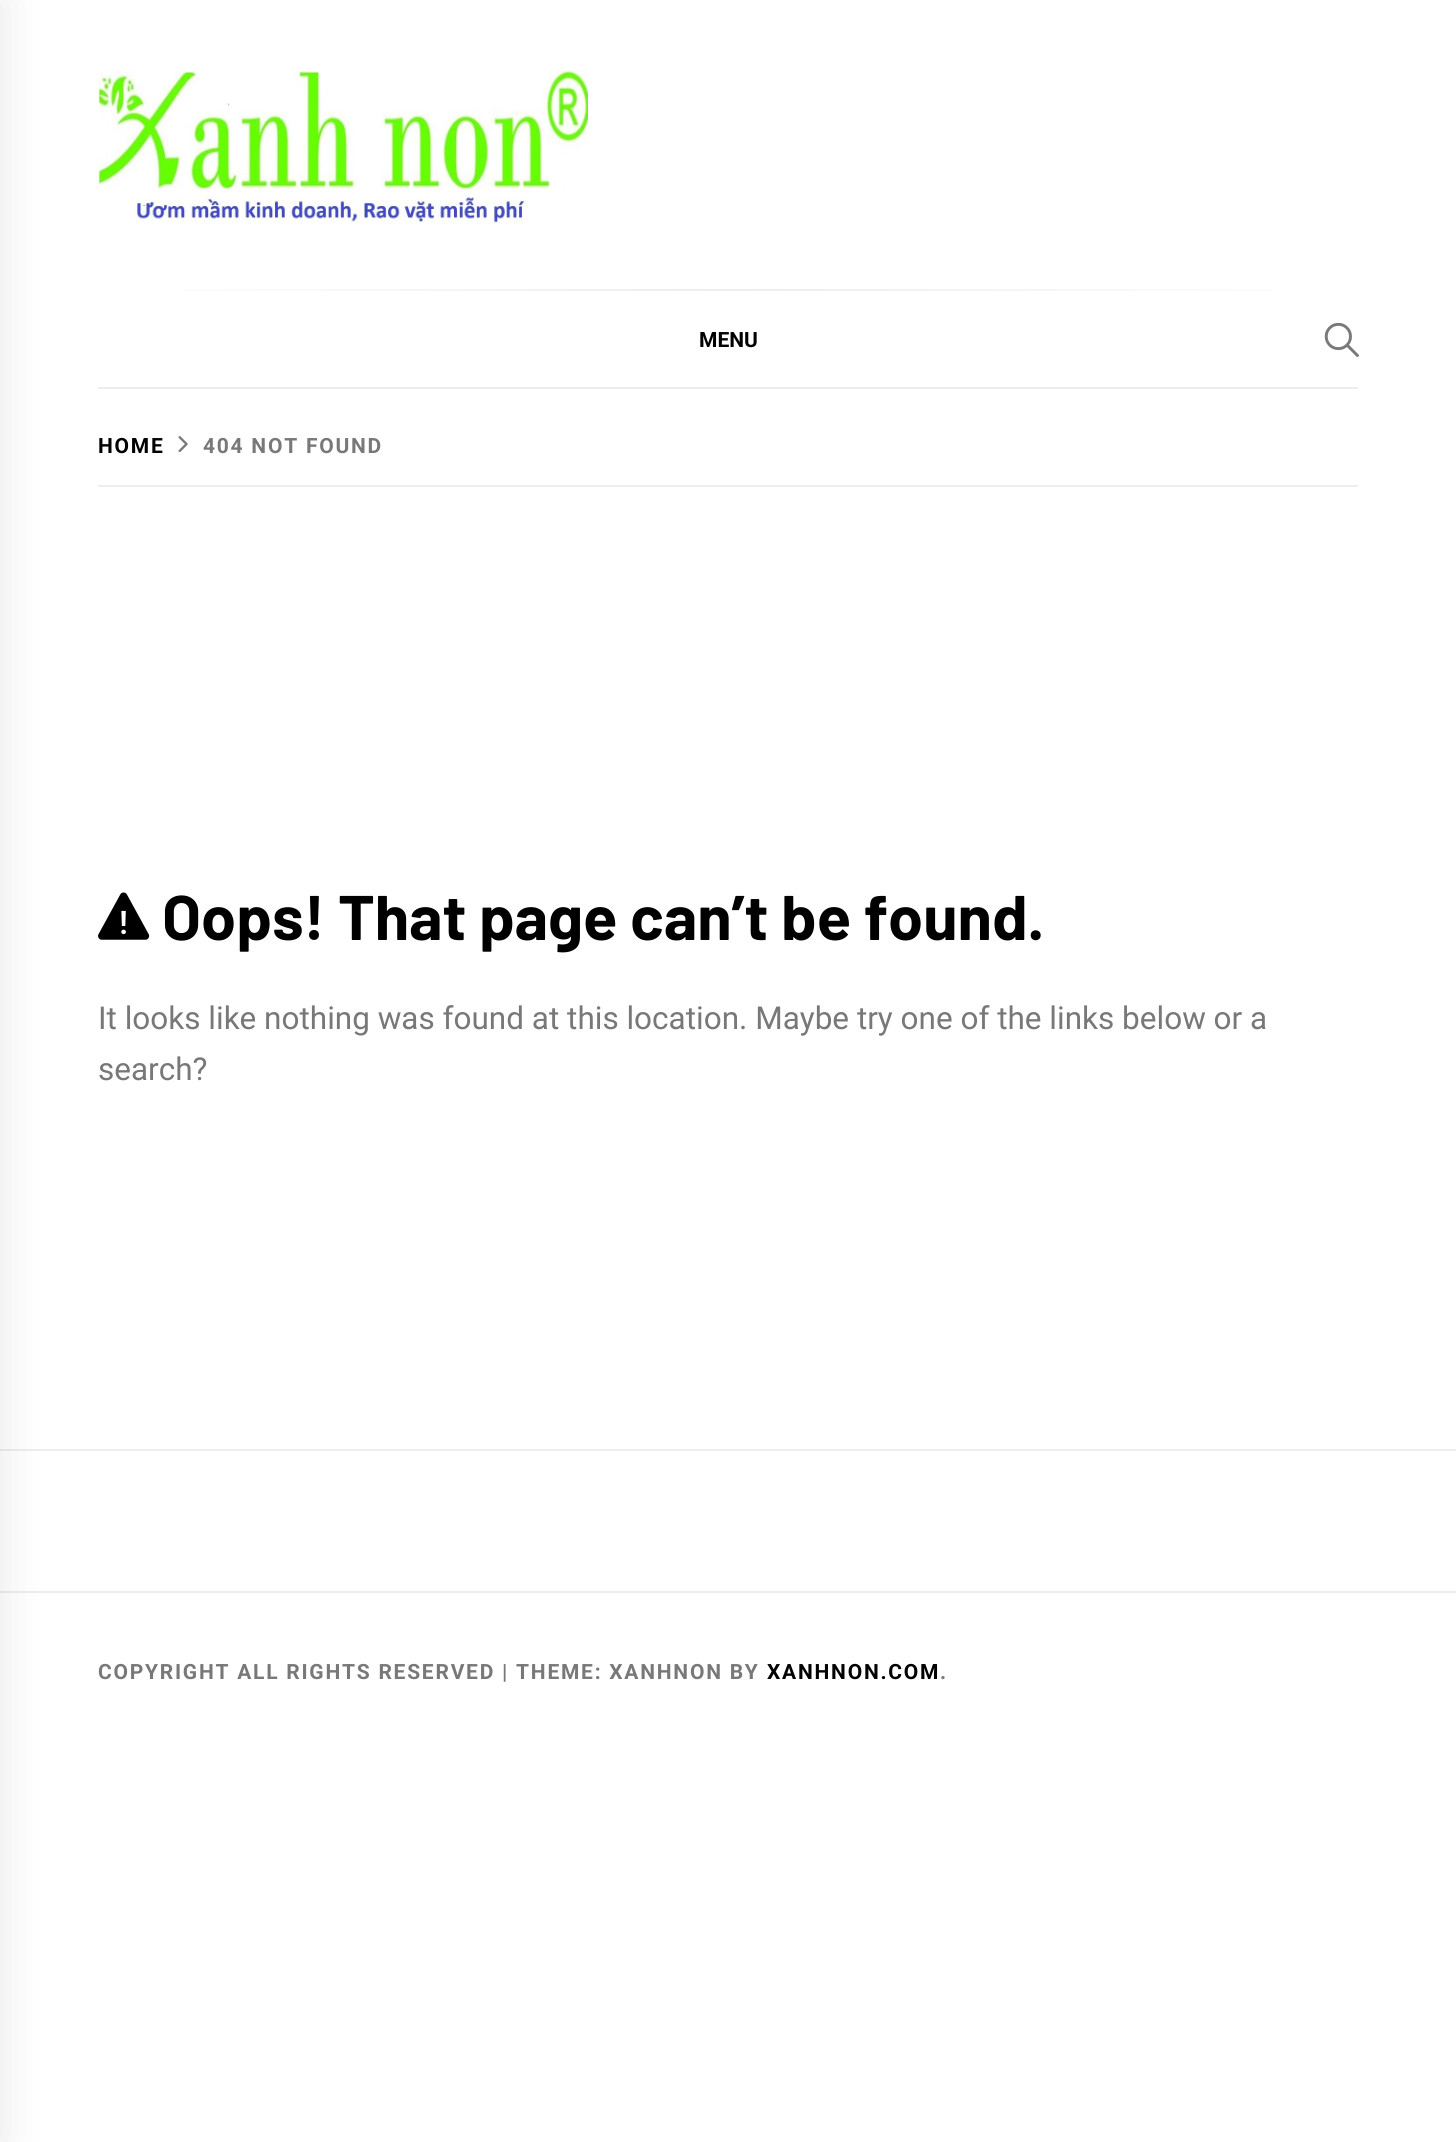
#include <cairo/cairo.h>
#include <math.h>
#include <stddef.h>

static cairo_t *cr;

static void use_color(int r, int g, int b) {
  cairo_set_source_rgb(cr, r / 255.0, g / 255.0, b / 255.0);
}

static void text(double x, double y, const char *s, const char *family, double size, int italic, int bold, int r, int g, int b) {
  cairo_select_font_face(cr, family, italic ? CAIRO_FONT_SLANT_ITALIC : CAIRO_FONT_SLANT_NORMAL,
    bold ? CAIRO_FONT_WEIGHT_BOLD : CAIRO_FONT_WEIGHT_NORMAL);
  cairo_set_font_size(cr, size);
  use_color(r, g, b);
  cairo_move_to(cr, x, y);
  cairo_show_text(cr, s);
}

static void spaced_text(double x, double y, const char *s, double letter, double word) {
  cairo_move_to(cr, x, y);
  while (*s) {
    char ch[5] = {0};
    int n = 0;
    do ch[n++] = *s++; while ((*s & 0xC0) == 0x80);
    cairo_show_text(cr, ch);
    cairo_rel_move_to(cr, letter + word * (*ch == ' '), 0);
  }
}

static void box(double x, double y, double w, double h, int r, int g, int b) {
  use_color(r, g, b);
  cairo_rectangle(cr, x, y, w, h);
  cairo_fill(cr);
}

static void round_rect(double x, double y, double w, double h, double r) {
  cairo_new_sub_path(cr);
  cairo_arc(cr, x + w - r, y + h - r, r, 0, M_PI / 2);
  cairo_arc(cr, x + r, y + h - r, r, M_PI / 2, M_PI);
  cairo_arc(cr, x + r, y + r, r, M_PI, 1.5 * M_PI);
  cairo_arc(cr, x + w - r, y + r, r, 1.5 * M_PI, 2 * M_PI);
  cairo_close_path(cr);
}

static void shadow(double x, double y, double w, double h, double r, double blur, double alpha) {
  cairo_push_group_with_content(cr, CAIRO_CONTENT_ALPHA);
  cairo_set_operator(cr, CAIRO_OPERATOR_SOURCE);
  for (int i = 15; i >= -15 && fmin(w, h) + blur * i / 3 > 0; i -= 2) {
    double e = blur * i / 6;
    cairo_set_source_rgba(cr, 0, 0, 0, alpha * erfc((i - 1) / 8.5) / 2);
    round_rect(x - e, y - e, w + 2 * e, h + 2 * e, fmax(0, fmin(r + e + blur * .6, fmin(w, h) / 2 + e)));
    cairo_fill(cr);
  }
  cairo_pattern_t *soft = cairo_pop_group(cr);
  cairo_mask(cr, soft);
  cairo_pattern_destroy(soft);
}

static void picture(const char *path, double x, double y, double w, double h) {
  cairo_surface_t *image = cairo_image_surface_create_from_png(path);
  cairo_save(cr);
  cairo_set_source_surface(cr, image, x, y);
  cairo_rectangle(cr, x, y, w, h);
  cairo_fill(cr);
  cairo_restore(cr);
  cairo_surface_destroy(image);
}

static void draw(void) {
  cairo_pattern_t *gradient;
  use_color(255, 255, 255);
  cairo_paint(cr);
  box(0, 1449, 1456, 2, 237, 237, 237);
  box(0, 1591, 1456, 2, 237, 237, 237);
  use_color(0, 0, 0);
  shadow(-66, 0, 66, 2142, 0, 22, 0.1);
  picture("img_01.png", 98, 70, 490, 153);
  box(98, 387, 1260, 2, 237, 237, 237);
  gradient = cairo_pattern_create_linear(1358, 290, 98, 290);
  cairo_pattern_add_color_stop_rgba(gradient, 0, 1, 1, 1, 1);
  cairo_pattern_add_color_stop_rgba(gradient, 0.5, 0.929, 0.929, 0.929, 1);
  cairo_pattern_add_color_stop_rgba(gradient, 1, 1, 1, 1, 1);
  cairo_set_source(cr, gradient);
  cairo_pattern_destroy(gradient);
  cairo_rectangle(cr, 185, 289, 1085, 2);
  cairo_fill(cr);
  picture("img_02.png", 1324, 322, 35, 35);
  picture("img_03.png", 178, 436, 10, 17);
  box(98, 485, 1260, 2, 237, 237, 237);
  picture("img_04.png", 98, 892, 52, 48);
  text(699, 347, "MENU", "Roboto", 21, 0, 1, 0, 0, 0);
  spaced_text(98, 453, "HOME", 1.75, 0);
  use_color(120, 120, 120);
  spaced_text(203, 453, "404 NOT FOUND", 1.75, 0);
  text(162, 940, "Oops! That page can’t be found.", "Barlow", 63, 0, 1, 0, 0, 0);
  text(98, 1029, "It looks like nothing was found at this location. Maybe try one of the links below or a", "Roboto", 31.5, 0, 0, 120, 120, 120);
  text(98, 1080, "search?", "Roboto", 31.5, 0, 0, 120, 120, 120);
  cairo_select_font_face(cr, "Roboto", CAIRO_FONT_SLANT_NORMAL, CAIRO_FONT_WEIGHT_BOLD);
  cairo_set_font_size(cr, 21);
  spaced_text(98, 1679, "COPYRIGHT ALL RIGHTS RESERVED | THEME: XANHNON BY", 1.75, 0);
  use_color(0, 0, 0);
  spaced_text(767, 1679, "XANHNON.COM", 1.75, 0);
  use_color(120, 120, 120);
  spaced_text(940, 1679, ".", 1.75, 0);
}

int main(void) {
  cairo_surface_t *surface = cairo_image_surface_create(CAIRO_FORMAT_RGB24, 1456, 2142);
  cr = cairo_create(surface);
  cairo_font_options_t *options = cairo_font_options_create();
  cairo_font_options_set_hint_metrics(options, CAIRO_HINT_METRICS_OFF);
  cairo_font_options_set_hint_style(options, CAIRO_HINT_STYLE_NONE);
  cairo_set_font_options(cr, options);
  cairo_set_miter_limit(cr, 4);
  draw();
  cairo_surface_write_to_png(surface, "out.png");
  cairo_font_options_destroy(options);
  cairo_destroy(cr);
  cairo_surface_destroy(surface);
  return 0;
}
